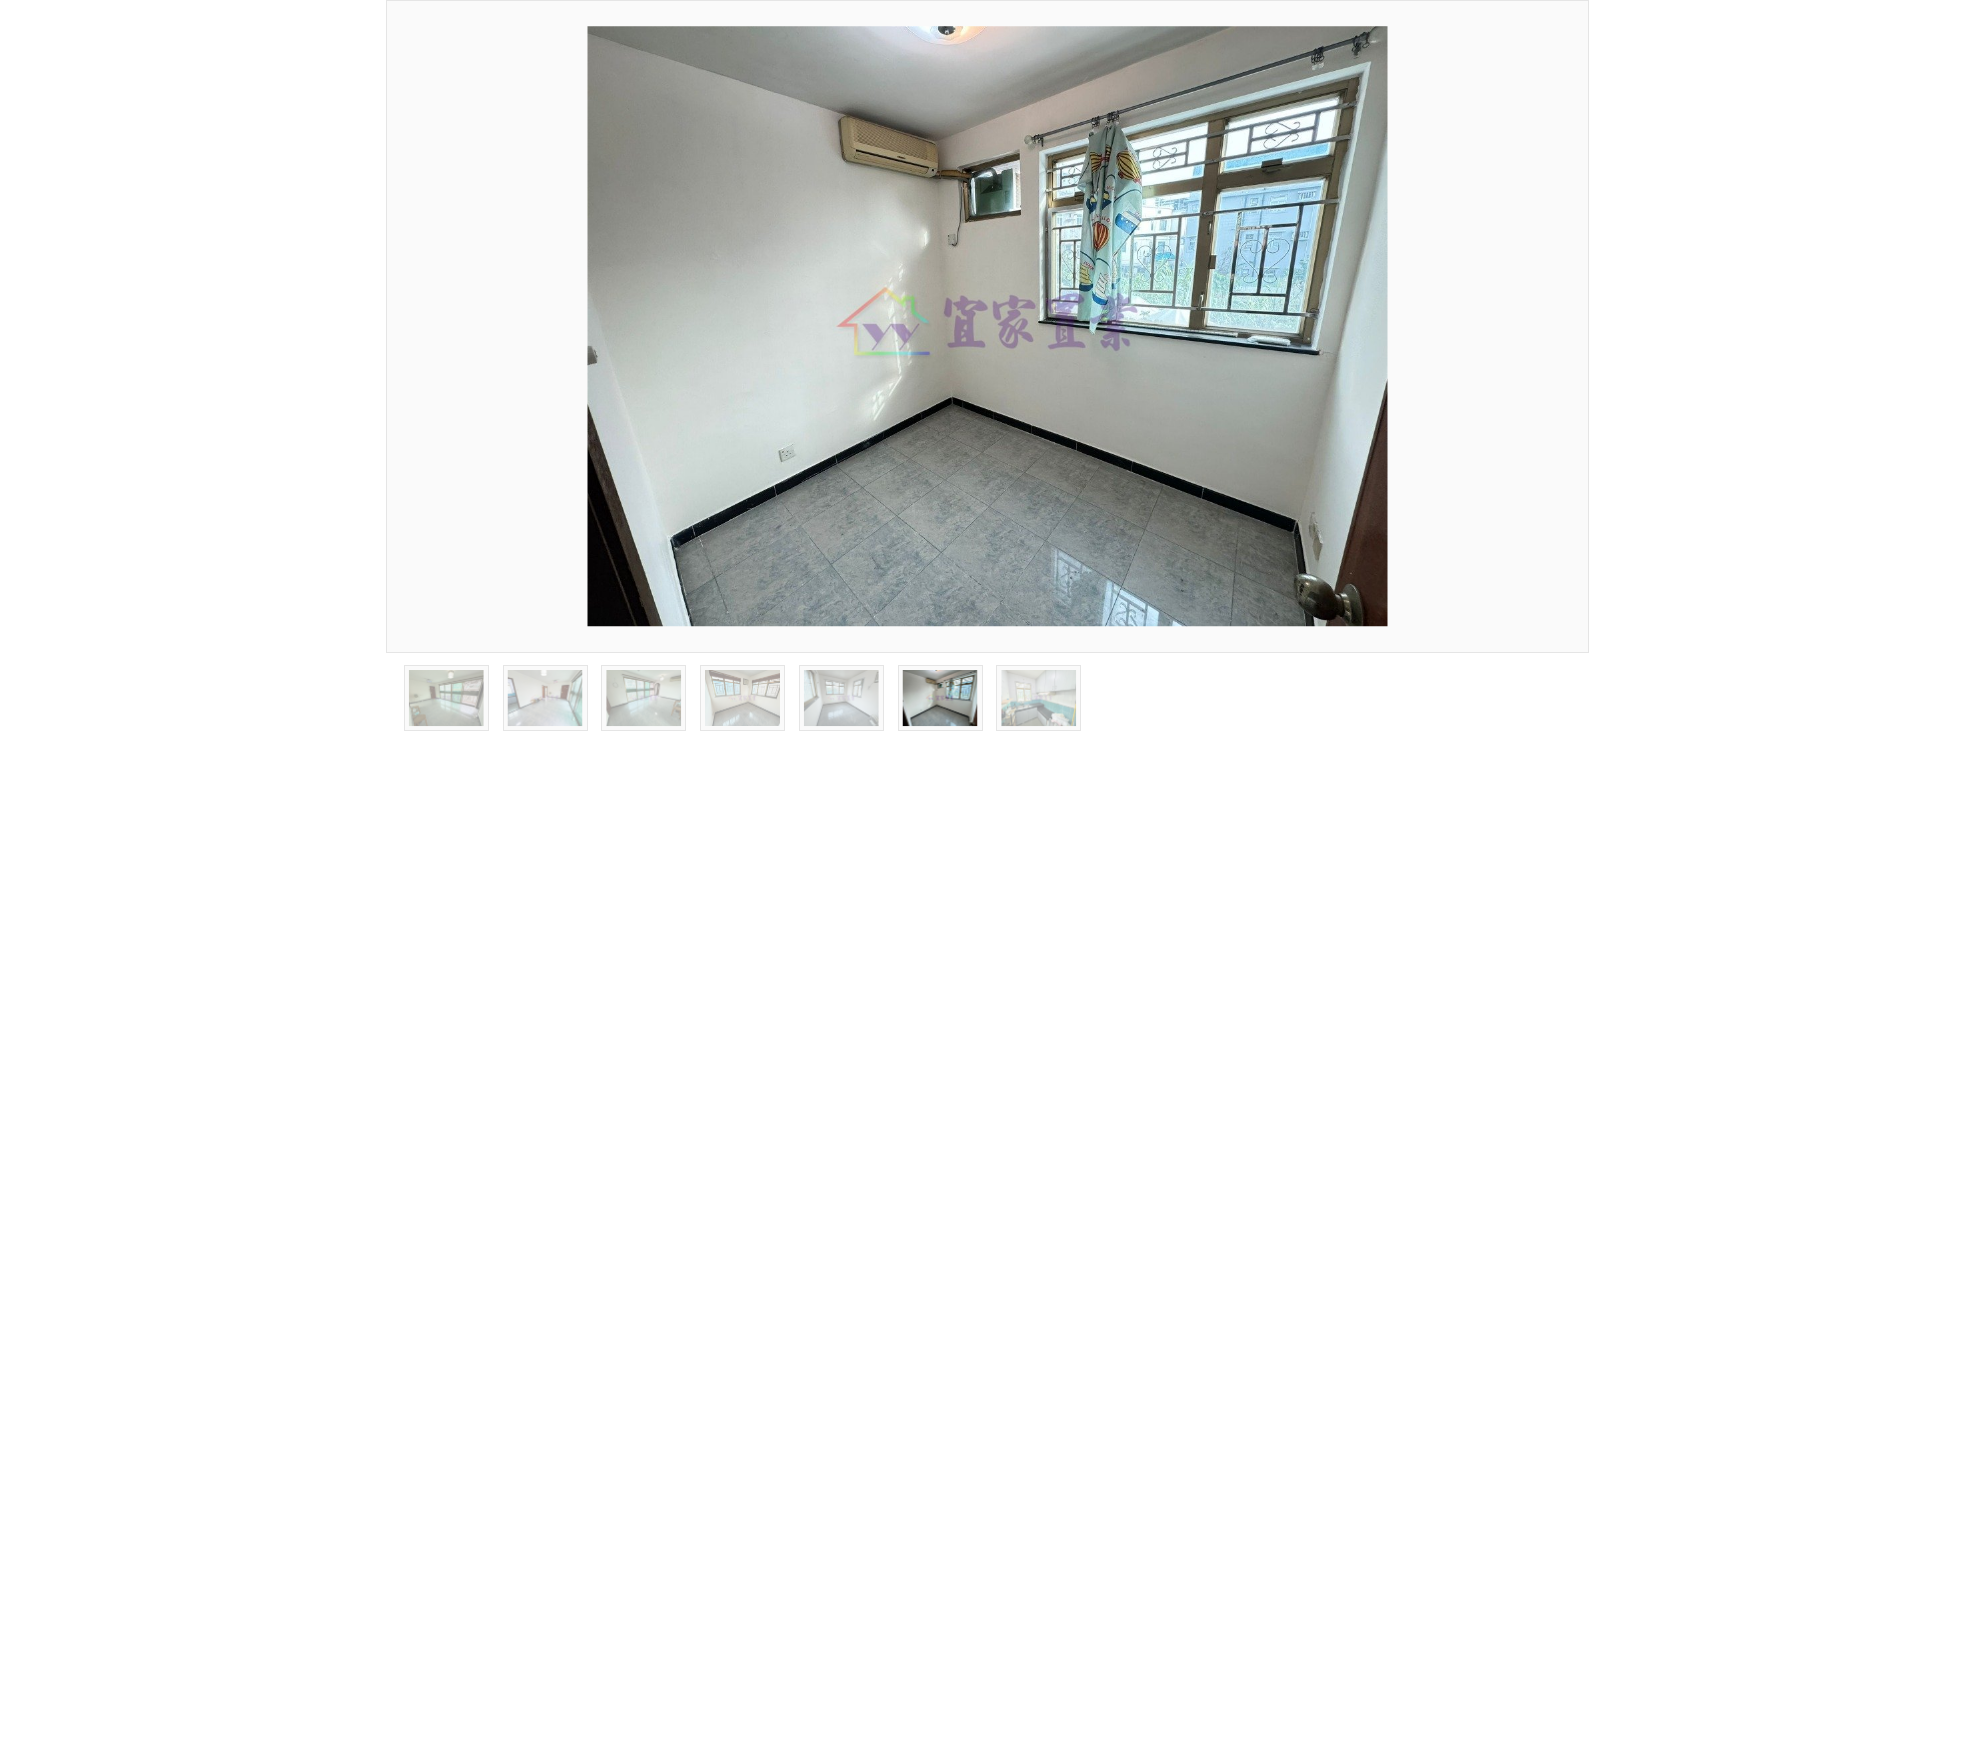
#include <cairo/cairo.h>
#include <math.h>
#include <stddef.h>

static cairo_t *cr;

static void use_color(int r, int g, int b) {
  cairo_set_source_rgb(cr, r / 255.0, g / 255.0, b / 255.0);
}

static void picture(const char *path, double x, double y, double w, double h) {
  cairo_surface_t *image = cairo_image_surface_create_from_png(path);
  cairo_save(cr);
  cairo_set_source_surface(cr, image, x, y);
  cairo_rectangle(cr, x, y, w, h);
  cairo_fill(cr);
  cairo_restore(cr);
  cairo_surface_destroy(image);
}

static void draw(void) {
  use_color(255, 255, 255);
  cairo_paint(cr);
  use_color(250, 250, 250);
  cairo_rectangle(cr, 386.5, 0.5, 1202, 652);
  cairo_fill_preserve(cr);
  use_color(229, 229, 229);
  cairo_set_line_width(cr, 1);
  cairo_stroke(cr);
  picture("img_01.png", 587, 26, 801, 601);
  use_color(250, 250, 250);
  cairo_rectangle(cr, 404.5, 665.5, 84, 65);
  cairo_fill_preserve(cr);
  use_color(229, 229, 229);
  cairo_stroke(cr);
  picture("img_02.png", 408, 670, 76, 57);
  use_color(250, 250, 250);
  cairo_rectangle(cr, 503.5, 665.5, 84, 65);
  cairo_fill_preserve(cr);
  use_color(229, 229, 229);
  cairo_stroke(cr);
  picture("img_03.png", 507, 670, 76, 57);
  use_color(250, 250, 250);
  cairo_rectangle(cr, 601.5, 665.5, 84, 65);
  cairo_fill_preserve(cr);
  use_color(229, 229, 229);
  cairo_stroke(cr);
  picture("img_04.png", 606, 670, 76, 57);
  use_color(250, 250, 250);
  cairo_rectangle(cr, 700.5, 665.5, 84, 65);
  cairo_fill_preserve(cr);
  use_color(229, 229, 229);
  cairo_stroke(cr);
  picture("img_05.png", 705, 670, 75, 56);
  use_color(250, 250, 250);
  cairo_rectangle(cr, 799.5, 665.5, 84, 65);
  cairo_fill_preserve(cr);
  use_color(229, 229, 229);
  cairo_stroke(cr);
  picture("img_06.png", 803, 670, 76, 57);
  use_color(250, 250, 250);
  cairo_rectangle(cr, 898.5, 665.5, 84, 65);
  cairo_fill_preserve(cr);
  use_color(229, 229, 229);
  cairo_stroke(cr);
  picture("img_07.png", 902, 670, 76, 57);
  use_color(250, 250, 250);
  cairo_rectangle(cr, 996.5, 665.5, 84, 65);
  cairo_fill_preserve(cr);
  use_color(229, 229, 229);
  cairo_stroke(cr);
  picture("img_08.png", 1001, 670, 76, 57);
}

int main(void) {
  cairo_surface_t *surface = cairo_image_surface_create(CAIRO_FORMAT_RGB24, 1983, 1758);
  cr = cairo_create(surface);
  cairo_font_options_t *options = cairo_font_options_create();
  cairo_font_options_set_hint_metrics(options, CAIRO_HINT_METRICS_OFF);
  cairo_font_options_set_hint_style(options, CAIRO_HINT_STYLE_NONE);
  cairo_set_font_options(cr, options);
  cairo_set_miter_limit(cr, 4);
  draw();
  cairo_surface_write_to_png(surface, "out.png");
  cairo_font_options_destroy(options);
  cairo_destroy(cr);
  cairo_surface_destroy(surface);
  return 0;
}
